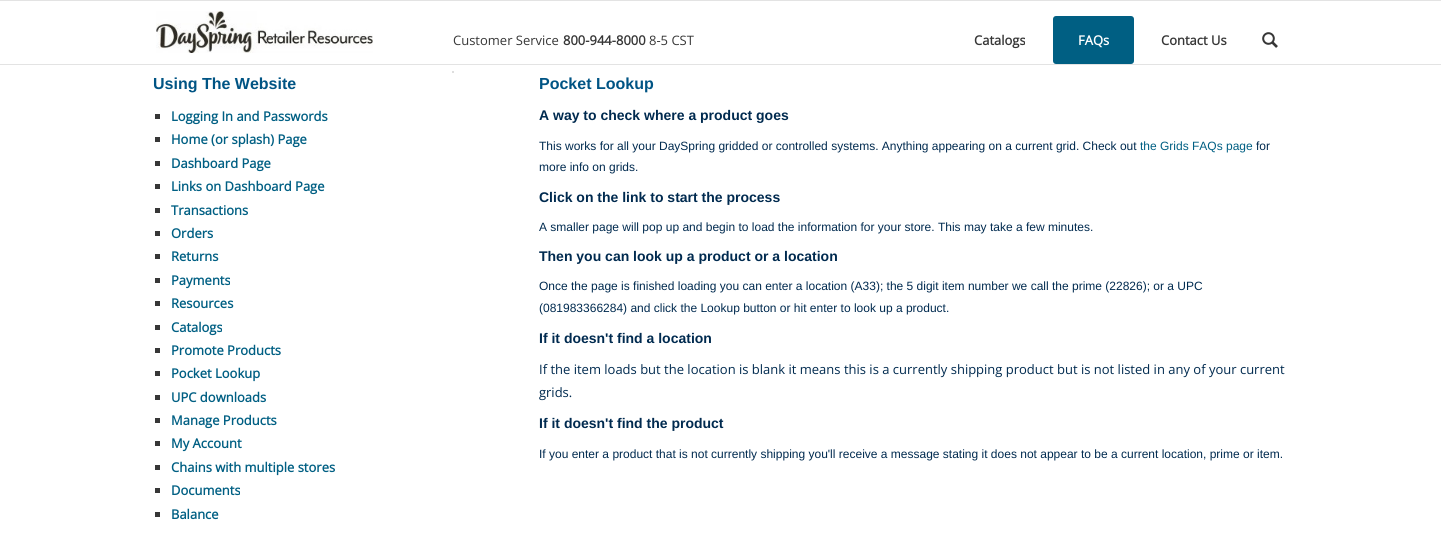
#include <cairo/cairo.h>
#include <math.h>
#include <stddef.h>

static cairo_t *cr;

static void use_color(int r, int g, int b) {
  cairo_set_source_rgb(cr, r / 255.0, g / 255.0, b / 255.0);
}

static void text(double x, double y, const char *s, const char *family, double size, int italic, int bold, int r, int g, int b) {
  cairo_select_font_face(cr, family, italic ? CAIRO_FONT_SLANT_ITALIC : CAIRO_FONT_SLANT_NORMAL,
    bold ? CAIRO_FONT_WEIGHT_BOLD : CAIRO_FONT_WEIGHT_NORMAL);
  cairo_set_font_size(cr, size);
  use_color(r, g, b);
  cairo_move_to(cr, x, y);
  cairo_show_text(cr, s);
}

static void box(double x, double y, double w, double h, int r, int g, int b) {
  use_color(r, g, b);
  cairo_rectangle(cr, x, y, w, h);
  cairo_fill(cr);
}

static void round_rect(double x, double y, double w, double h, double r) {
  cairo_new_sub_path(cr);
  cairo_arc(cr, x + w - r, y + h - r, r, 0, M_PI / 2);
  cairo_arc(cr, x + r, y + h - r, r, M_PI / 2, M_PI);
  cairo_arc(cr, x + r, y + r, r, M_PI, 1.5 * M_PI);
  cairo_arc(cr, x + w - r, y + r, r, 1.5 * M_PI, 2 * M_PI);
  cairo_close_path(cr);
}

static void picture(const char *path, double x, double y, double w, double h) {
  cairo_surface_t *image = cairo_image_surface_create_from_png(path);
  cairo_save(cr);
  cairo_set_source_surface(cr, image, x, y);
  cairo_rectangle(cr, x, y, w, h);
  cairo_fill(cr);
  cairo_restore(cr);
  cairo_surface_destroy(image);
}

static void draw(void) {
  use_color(255, 255, 255);
  cairo_paint(cr);
  box(0, 0, 1441, 1, 227, 227, 227);
  box(0, 64, 1441, 1, 227, 227, 227);
  picture("img_01.png", 156, 11, 217, 42);
  use_color(0, 95, 131);
  round_rect(1053, 16, 81, 48, 3);
  cairo_fill(cr);
  picture("img_02.png", 1262, 32, 16, 16);
  box(452, 71, 2, 2, 222, 222, 222);
  box(155, 114, 5, 5, 55, 55, 55);
  box(155, 137, 5, 5, 55, 55, 55);
  box(155, 161, 5, 5, 55, 55, 55);
  box(155, 184, 5, 5, 55, 55, 55);
  box(155, 208, 5, 5, 55, 55, 55);
  box(155, 231, 5, 5, 55, 55, 55);
  box(155, 254, 5, 5, 55, 55, 55);
  box(155, 278, 5, 5, 55, 55, 55);
  box(155, 301, 5, 5, 55, 55, 55);
  box(155, 325, 5, 5, 55, 55, 55);
  box(155, 348, 5, 5, 55, 55, 55);
  box(155, 371, 5, 5, 55, 55, 55);
  box(155, 395, 5, 5, 55, 55, 55);
  box(155, 418, 5, 5, 55, 55, 55);
  box(155, 441, 5, 5, 55, 55, 55);
  box(155, 465, 5, 5, 55, 55, 55);
  box(155, 488, 5, 5, 55, 55, 55);
  box(155, 512, 5, 5, 55, 55, 55);
  text(453, 45, "Customer Service", "Open Sans", 13, 0, 0, 55, 55, 55);
  text(563, 45, "800-944-8000", "Open Sans", 13, 0, 1, 55, 55, 55);
  text(649, 45, "8-5 CST", "Open Sans", 13, 0, 0, 55, 55, 55);
  text(974, 45, "Catalogs", "Open Sans", 13, 0, 1, 55, 55, 55);
  text(1078, 45, "FAQs", "Open Sans", 13, 0, 1, 255, 255, 255);
  text(1161, 45, "Contact Us", "Open Sans", 13, 0, 1, 55, 55, 55);
  text(153, 89, "Using The Website", "Liberation Sans", 16, 0, 1, 0, 84, 132);
  text(171, 121, "Logging In and Passwords", "Open Sans", 13, 0, 1, 0, 95, 131);
  text(171, 144, "Home (or splash) Page", "Open Sans", 13, 0, 1, 0, 95, 131);
  text(171, 168, "Dashboard Page", "Open Sans", 13, 0, 1, 0, 95, 131);
  text(171, 191, "Links on Dashboard Page", "Open Sans", 13, 0, 1, 0, 95, 131);
  text(171, 215, "Transactions", "Open Sans", 13, 0, 1, 0, 95, 131);
  text(171, 238, "Orders", "Open Sans", 13, 0, 1, 0, 95, 131);
  text(171, 261, "Returns", "Open Sans", 13, 0, 1, 0, 95, 131);
  text(171, 285, "Payments", "Open Sans", 13, 0, 1, 0, 95, 131);
  text(171, 308, "Resources", "Open Sans", 13, 0, 1, 0, 95, 131);
  text(171, 332, "Catalogs", "Open Sans", 13, 0, 1, 0, 95, 131);
  text(171, 355, "Promote Products", "Open Sans", 13, 0, 1, 0, 95, 131);
  text(171, 378, "Pocket Lookup", "Open Sans", 13, 0, 1, 0, 95, 131);
  text(171, 402, "UPC downloads", "Open Sans", 13, 0, 1, 0, 95, 131);
  text(171, 425, "Manage Products", "Open Sans", 13, 0, 1, 0, 95, 131);
  text(171, 448, "My Account", "Open Sans", 13, 0, 1, 0, 95, 131);
  text(171, 472, "Chains with multiple stores", "Open Sans", 13, 0, 1, 0, 95, 131);
  text(171, 495, "Documents", "Open Sans", 13, 0, 1, 0, 95, 131);
  text(171, 519, "Balance", "Open Sans", 13, 0, 1, 0, 95, 131);
  text(539, 89, "Pocket Lookup", "Liberation Sans", 16, 0, 1, 0, 84, 132);
  text(539, 120, "A way to check where a product goes", "Liberation Sans", 14, 0, 1, 0, 42, 79);
  text(539, 150, "This works for all your DaySpring gridded or controlled systems. Anything appearing on a current grid. Check out", "Liberation Sans", 12, 0, 0, 0, 42, 79);
  text(1140, 150, "the Grids FAQs page", "Liberation Sans", 12, 0, 0, 0, 95, 131);
  text(1256, 150, "for", "Liberation Sans", 12, 0, 0, 0, 42, 79);
  text(539, 171, "more info on grids.", "Liberation Sans", 12, 0, 0, 0, 42, 79);
  text(539, 202, "Click on the link to start the process", "Liberation Sans", 14, 0, 1, 0, 42, 79);
  text(539, 231, "A smaller page will pop up and begin to load the information for your store. This may take a few minutes.", "Liberation Sans", 12, 0, 0, 0, 42, 79);
  text(539, 261, "Then you can look up a product or a location", "Liberation Sans", 14, 0, 1, 0, 42, 79);
  text(539, 290, "Once the page is finished loading you can enter a location (A33); the 5 digit item number we call the prime (22826); or a UPC", "Liberation Sans", 12, 0, 0, 0, 42, 79);
  text(539, 312, "(081983366284) and click the Lookup button or hit enter to look up a product.", "Liberation Sans", 12, 0, 0, 0, 42, 79);
  text(539, 343, "If it doesn't find a location", "Liberation Sans", 14, 0, 1, 0, 42, 79);
  text(539, 374, "If the item loads but the location is blank it means this is a currently shipping product but is not listed in any of your current", "Open Sans", 13, 0, 0, 0, 42, 79);
  text(539, 397, "grids.", "Open Sans", 13, 0, 0, 0, 42, 79);
  text(539, 428, "If it doesn't find the product", "Liberation Sans", 14, 0, 1, 0, 42, 79);
  text(539, 458, "If you enter a product that is not currently shipping you'll receive a message stating it does not appear to be a current location, prime or item.", "Liberation Sans", 12, 0, 0, 0, 42, 79);
}

int main(void) {
  cairo_surface_t *surface = cairo_image_surface_create(CAIRO_FORMAT_RGB24, 1441, 533);
  cr = cairo_create(surface);
  cairo_font_options_t *options = cairo_font_options_create();
  cairo_font_options_set_hint_metrics(options, CAIRO_HINT_METRICS_OFF);
  cairo_font_options_set_hint_style(options, CAIRO_HINT_STYLE_NONE);
  cairo_set_font_options(cr, options);
  cairo_set_miter_limit(cr, 4);
  draw();
  cairo_surface_write_to_png(surface, "out.png");
  cairo_font_options_destroy(options);
  cairo_destroy(cr);
  cairo_surface_destroy(surface);
  return 0;
}
